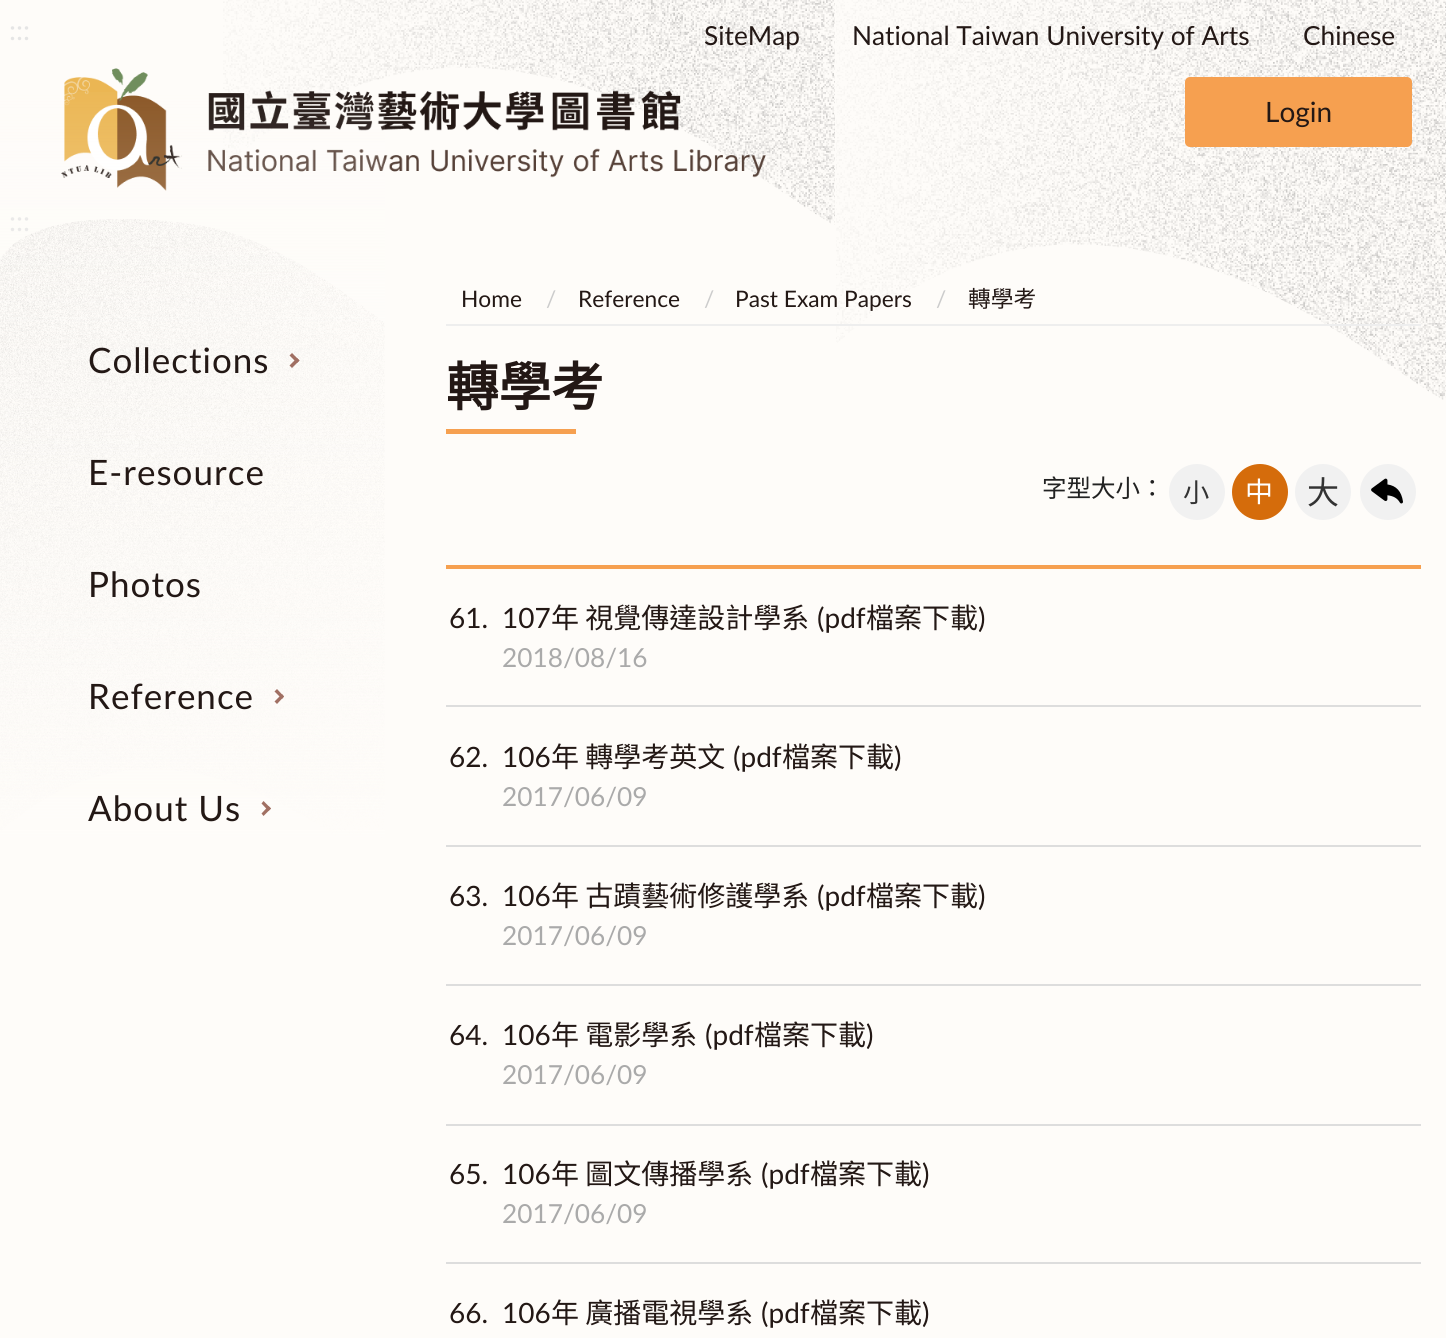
#include <cairo/cairo.h>
#include <math.h>
#include <stddef.h>

static cairo_t *cr;

static void use_color(int r, int g, int b) {
  cairo_set_source_rgb(cr, r / 255.0, g / 255.0, b / 255.0);
}

static void text(double x, double y, const char *s, const char *family, double size, int italic, int bold, int r, int g, int b) {
  cairo_select_font_face(cr, family, italic ? CAIRO_FONT_SLANT_ITALIC : CAIRO_FONT_SLANT_NORMAL,
    bold ? CAIRO_FONT_WEIGHT_BOLD : CAIRO_FONT_WEIGHT_NORMAL);
  cairo_set_font_size(cr, size);
  use_color(r, g, b);
  cairo_move_to(cr, x, y);
  cairo_show_text(cr, s);
}

static void spaced_text(double x, double y, const char *s, double letter, double word) {
  cairo_move_to(cr, x, y);
  while (*s) {
    char ch[5] = {0};
    int n = 0;
    do ch[n++] = *s++; while ((*s & 0xC0) == 0x80);
    cairo_show_text(cr, ch);
    cairo_rel_move_to(cr, letter + word * (*ch == ' '), 0);
  }
}

static void box(double x, double y, double w, double h, int r, int g, int b) {
  use_color(r, g, b);
  cairo_rectangle(cr, x, y, w, h);
  cairo_fill(cr);
}

static void round_rect(double x, double y, double w, double h, double r) {
  cairo_new_sub_path(cr);
  cairo_arc(cr, x + w - r, y + h - r, r, 0, M_PI / 2);
  cairo_arc(cr, x + r, y + h - r, r, M_PI / 2, M_PI);
  cairo_arc(cr, x + r, y + r, r, M_PI, 1.5 * M_PI);
  cairo_arc(cr, x + w - r, y + r, r, 1.5 * M_PI, 2 * M_PI);
  cairo_close_path(cr);
}

static void picture(const char *path, double x, double y, double w, double h) {
  cairo_surface_t *image = cairo_image_surface_create_from_png(path);
  cairo_save(cr);
  cairo_set_source_surface(cr, image, x, y);
  cairo_rectangle(cr, x, y, w, h);
  cairo_fill(cr);
  cairo_restore(cr);
  cairo_surface_destroy(image);
}

static void draw(void) {
  cairo_pattern_t *gradient;
  use_color(254, 252, 249);
  cairo_paint(cr);
  picture("img_01.png", 836, 0, 610, 400);
  picture("img_02.png", 223, 0, 612, 225);
  picture("img_03.png", 61, 68, 705, 123);
  use_color(246, 160, 80);
  round_rect(1185, 77, 227, 70, 5);
  cairo_fill(cr);
  box(446, 324, 975, 2, 238, 238, 238);
  box(446, 429, 130, 5, 246, 160, 80);
  use_color(241, 241, 241);
  cairo_arc(cr, 1197, 492, 28, 0, 2 * M_PI);
  cairo_fill(cr);
  use_color(213, 108, 11);
  cairo_arc(cr, 1260, 492, 28, 0, 2 * M_PI);
  cairo_fill(cr);
  use_color(241, 241, 241);
  cairo_arc(cr, 1323, 492, 28, 0, 2 * M_PI);
  cairo_fill(cr);
  cairo_arc(cr, 1388, 492, 28, 0, 2 * M_PI);
  cairo_fill(cr);
  picture("img_05.png", 1371, 478, 32, 26);
  box(446, 565, 975, 4, 246, 160, 80);
  box(446, 705, 975, 2, 221, 221, 221);
  box(446, 845, 975, 2, 221, 221, 221);
  box(446, 984, 975, 2, 221, 221, 221);
  box(446, 1124, 975, 2, 221, 221, 221);
  box(446, 1262, 975, 2, 221, 221, 221);
  text(9, 40, ":::", "Lato", 28, 0, 0, 229, 229, 229);
  text(704, 45, "SiteMap", "Lato", 26.25, 0, 0, 35, 24, 21);
  text(852, 45, "National Taiwan University of Arts", "Lato", 26.25, 0, 0, 35, 24, 21);
  text(1303, 45, "Chinese", "Lato", 26.25, 0, 0, 35, 24, 21);
  text(1265, 122, "Login", "Lato", 28, 0, 0, 35, 24, 21);
  text(9, 231, ":::", "Lato", 28, 0, 0, 229, 229, 229);
  picture("img_04.png", 0, 219, 385, 639);
  gradient = cairo_pattern_create_linear(193, 863, 193, 75);
  cairo_pattern_add_color_stop_rgba(gradient, 0, 0.996, 0.988, 0.976, 1);
  cairo_pattern_add_color_stop_rgba(gradient, 1, 0.996, 0.988, 0.976, 0);
  cairo_set_source(cr, gradient);
  cairo_pattern_destroy(gradient);
  cairo_rectangle(cr, 0, 92, 385, 766);
  cairo_fill(cr);
  cairo_set_font_size(cr, 35);
  use_color(35, 24, 21);
  spaced_text(88, 373, "Collections", 1, 0);
  use_color(161, 112, 99);
  cairo_new_path(cr);
  cairo_move_to(cr, 292, 353);
  cairo_line_to(cr, 299.5, 360.5);
  cairo_line_to(cr, 297, 363);
  cairo_line_to(cr, 289.5, 355.5);
  cairo_close_path(cr);
  cairo_fill(cr);
  cairo_new_path(cr);
  cairo_move_to(cr, 297, 358);
  cairo_line_to(cr, 299.5, 360.5);
  cairo_line_to(cr, 292, 368);
  cairo_line_to(cr, 289.5, 365.5);
  cairo_close_path(cr);
  cairo_fill(cr);
  use_color(35, 24, 21);
  spaced_text(88, 485, "E-resource", 1, 0);
  spaced_text(88, 597, "Photos", 1, 0);
  spaced_text(88, 709, "Reference", 1, 0);
  use_color(161, 112, 99);
  cairo_new_path(cr);
  cairo_move_to(cr, 277, 689);
  cairo_line_to(cr, 284, 696.5);
  cairo_line_to(cr, 282, 699);
  cairo_line_to(cr, 274.5, 691.5);
  cairo_close_path(cr);
  cairo_fill(cr);
  cairo_new_path(cr);
  cairo_move_to(cr, 282, 694);
  cairo_line_to(cr, 284, 696.5);
  cairo_line_to(cr, 277, 704);
  cairo_line_to(cr, 274.5, 701.5);
  cairo_close_path(cr);
  cairo_fill(cr);
  use_color(35, 24, 21);
  spaced_text(88, 821, "About Us", 1, 0);
  use_color(161, 112, 99);
  cairo_new_path(cr);
  cairo_move_to(cr, 263.5, 801);
  cairo_line_to(cr, 271, 808.5);
  cairo_line_to(cr, 268.5, 811);
  cairo_line_to(cr, 261.5, 803.5);
  cairo_close_path(cr);
  cairo_fill(cr);
  cairo_new_path(cr);
  cairo_move_to(cr, 268.5, 806);
  cairo_line_to(cr, 271, 808.5);
  cairo_line_to(cr, 263.5, 816);
  cairo_line_to(cr, 261.5, 813.5);
  cairo_close_path(cr);
  cairo_fill(cr);
  text(461, 307, "Home", "Lato", 22.75, 0, 0, 35, 24, 21);
  text(546, 307, "/", "Lato", 22.75, 0, 0, 204, 204, 204);
  text(578, 307, "Reference", "Lato", 22.75, 0, 0, 35, 24, 21);
  text(704, 307, "/", "Lato", 22.75, 0, 0, 204, 204, 204);
  text(735, 307, "Past Exam Papers", "Lato", 22.75, 0, 0, 35, 24, 21);
  text(936, 307, "/", "Lato", 22.75, 0, 0, 204, 204, 204);
  text(968, 307, "轉學考", "Noto Sans CJK TC", 22.75, 0, 0, 35, 24, 21);
  text(446, 406, "轉學考", "Noto Sans CJK TC", 52.5, 0, 1, 35, 24, 21);
  text(1042, 497, "字型大小：", "Noto Sans CJK TC", 24.5, 0, 0, 34, 34, 34);
  text(1183, 502, "小", "Noto Sans CJK TC", 26.25, 0, 0, 51, 51, 51);
  text(1245, 502, "中", "Noto Sans CJK TC", 28, 0, 0, 255, 255, 255);
  text(1307, 504, "大", "Noto Sans CJK TC", 32, 0, 0, 51, 51, 51);
  text(449, 628, "61.", "Lato", 28, 0, 0, 35, 24, 21);
  text(502, 628, "107", "Lato", 28, 0, 0, 35, 24, 21);
  text(551, 628, "年 視覺傳達設計學系", "Noto Sans CJK TC", 28, 0, 0, 35, 24, 21);
  text(817, 628, "(pdf", "Lato", 28, 0, 0, 35, 24, 21);
  text(866, 628, "檔案下載", "Noto Sans CJK TC", 28, 0, 0, 35, 24, 21);
  text(978, 628, ")", "Lato", 28, 0, 0, 35, 24, 21);
  text(502, 667, "2018/08/16", "Lato", 26.25, 0, 0, 170, 170, 170);
  text(449, 767, "62.", "Lato", 28, 0, 0, 35, 24, 21);
  text(502, 767, "106", "Lato", 28, 0, 0, 35, 24, 21);
  text(551, 767, "年 轉學考英文", "Noto Sans CJK TC", 28, 0, 0, 35, 24, 21);
  text(733, 767, "(pdf", "Lato", 28, 0, 0, 35, 24, 21);
  text(782, 767, "檔案下載", "Noto Sans CJK TC", 28, 0, 0, 35, 24, 21);
  text(894, 767, ")", "Lato", 28, 0, 0, 35, 24, 21);
  text(502, 806, "2017/06/09", "Lato", 26.25, 0, 0, 170, 170, 170);
  text(449, 906, "63.", "Lato", 28, 0, 0, 35, 24, 21);
  text(502, 906, "106", "Lato", 28, 0, 0, 35, 24, 21);
  text(551, 906, "年 古蹟藝術修護學系", "Noto Sans CJK TC", 28, 0, 0, 35, 24, 21);
  text(817, 906, "(pdf", "Lato", 28, 0, 0, 35, 24, 21);
  text(866, 906, "檔案下載", "Noto Sans CJK TC", 28, 0, 0, 35, 24, 21);
  text(978, 906, ")", "Lato", 28, 0, 0, 35, 24, 21);
  text(502, 945, "2017/06/09", "Lato", 26.25, 0, 0, 170, 170, 170);
  text(449, 1045, "64.", "Lato", 28, 0, 0, 35, 24, 21);
  text(502, 1045, "106", "Lato", 28, 0, 0, 35, 24, 21);
  text(551, 1045, "年 電影學系", "Noto Sans CJK TC", 28, 0, 0, 35, 24, 21);
  text(705, 1045, "(pdf", "Lato", 28, 0, 0, 35, 24, 21);
  text(754, 1045, "檔案下載", "Noto Sans CJK TC", 28, 0, 0, 35, 24, 21);
  text(866, 1045, ")", "Lato", 28, 0, 0, 35, 24, 21);
  text(502, 1084, "2017/06/09", "Lato", 26.25, 0, 0, 170, 170, 170);
  text(449, 1184, "65.", "Lato", 28, 0, 0, 35, 24, 21);
  text(502, 1184, "106", "Lato", 28, 0, 0, 35, 24, 21);
  text(551, 1184, "年 圖文傳播學系", "Noto Sans CJK TC", 28, 0, 0, 35, 24, 21);
  text(761, 1184, "(pdf", "Lato", 28, 0, 0, 35, 24, 21);
  text(810, 1184, "檔案下載", "Noto Sans CJK TC", 28, 0, 0, 35, 24, 21);
  text(922, 1184, ")", "Lato", 28, 0, 0, 35, 24, 21);
  text(502, 1223, "2017/06/09", "Lato", 26.25, 0, 0, 170, 170, 170);
  text(449, 1323, "66.", "Lato", 28, 0, 0, 35, 24, 21);
  text(502, 1323, "106", "Lato", 28, 0, 0, 35, 24, 21);
  text(551, 1323, "年 廣播電視學系", "Noto Sans CJK TC", 28, 0, 0, 35, 24, 21);
  text(761, 1323, "(pdf", "Lato", 28, 0, 0, 35, 24, 21);
  text(810, 1323, "檔案下載", "Noto Sans CJK TC", 28, 0, 0, 35, 24, 21);
  text(922, 1323, ")", "Lato", 28, 0, 0, 35, 24, 21);
}

int main(void) {
  cairo_surface_t *surface = cairo_image_surface_create(CAIRO_FORMAT_RGB24, 1446, 1338);
  cr = cairo_create(surface);
  cairo_font_options_t *options = cairo_font_options_create();
  cairo_font_options_set_hint_metrics(options, CAIRO_HINT_METRICS_OFF);
  cairo_font_options_set_hint_style(options, CAIRO_HINT_STYLE_NONE);
  cairo_set_font_options(cr, options);
  cairo_set_miter_limit(cr, 4);
  draw();
  cairo_surface_write_to_png(surface, "out.png");
  cairo_font_options_destroy(options);
  cairo_destroy(cr);
  cairo_surface_destroy(surface);
  return 0;
}
